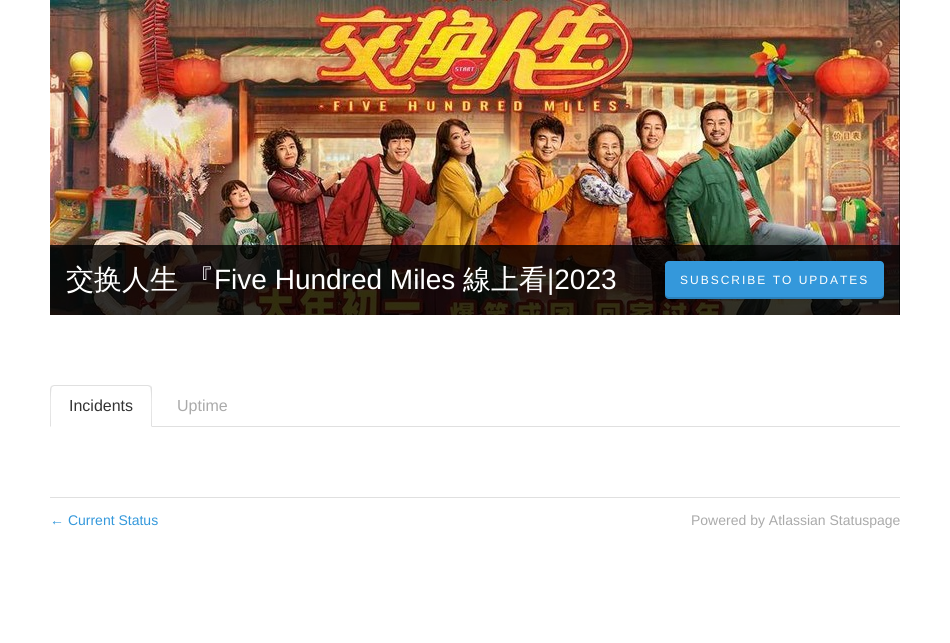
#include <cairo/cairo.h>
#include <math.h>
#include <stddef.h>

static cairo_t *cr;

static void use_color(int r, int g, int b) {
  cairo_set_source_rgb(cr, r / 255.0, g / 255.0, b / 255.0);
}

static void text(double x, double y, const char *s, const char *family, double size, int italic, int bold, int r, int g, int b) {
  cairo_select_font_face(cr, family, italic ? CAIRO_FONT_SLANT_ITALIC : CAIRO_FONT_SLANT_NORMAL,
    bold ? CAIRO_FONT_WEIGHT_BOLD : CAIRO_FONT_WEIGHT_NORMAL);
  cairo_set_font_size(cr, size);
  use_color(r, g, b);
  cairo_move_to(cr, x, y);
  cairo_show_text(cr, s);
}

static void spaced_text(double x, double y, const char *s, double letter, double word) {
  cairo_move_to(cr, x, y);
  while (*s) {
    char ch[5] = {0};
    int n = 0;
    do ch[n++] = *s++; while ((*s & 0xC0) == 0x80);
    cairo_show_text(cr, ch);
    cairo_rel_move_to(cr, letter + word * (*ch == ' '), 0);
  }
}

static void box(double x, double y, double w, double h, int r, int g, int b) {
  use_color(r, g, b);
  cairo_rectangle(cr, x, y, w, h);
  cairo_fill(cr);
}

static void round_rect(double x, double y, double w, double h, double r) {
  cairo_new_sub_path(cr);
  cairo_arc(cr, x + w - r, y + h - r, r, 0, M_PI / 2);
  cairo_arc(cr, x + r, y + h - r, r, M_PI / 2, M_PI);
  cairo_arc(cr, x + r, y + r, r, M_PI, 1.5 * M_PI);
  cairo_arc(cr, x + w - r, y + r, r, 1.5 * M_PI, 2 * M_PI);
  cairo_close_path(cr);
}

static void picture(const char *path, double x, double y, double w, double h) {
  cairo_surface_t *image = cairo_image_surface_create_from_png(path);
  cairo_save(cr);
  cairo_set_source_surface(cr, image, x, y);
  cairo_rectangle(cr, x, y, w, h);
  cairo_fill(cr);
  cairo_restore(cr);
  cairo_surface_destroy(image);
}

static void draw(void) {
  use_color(255, 255, 255);
  cairo_paint(cr);
  picture("img_01.png", 50, 0, 850, 315);
  cairo_set_source_rgba(cr, 0, 0, 0, 0.8);
  cairo_rectangle(cr, 50, 245, 850, 70);
  cairo_fill(cr);
  use_color(52, 152, 219);
  round_rect(665, 261, 219, 38, 4);
  cairo_fill(cr);
  cairo_set_source_rgba(cr, 0, 0, 0, 0.15);
  cairo_new_path(cr);
  cairo_move_to(cr, 665, 293);
  cairo_curve_to(cr, 665, 296, 665, 298, 668, 299);
  cairo_line_to(cr, 881, 299);
  cairo_curve_to(cr, 884, 298, 884, 296, 884, 293);
  cairo_curve_to(cr, 884, 295, 882, 297, 880, 297);
  cairo_line_to(cr, 669, 297);
  cairo_curve_to(cr, 667, 297, 665, 295, 665, 293);
  cairo_close_path(cr);
  cairo_fill(cr);
  box(152, 426, 748, 1, 224, 224, 224);
  cairo_new_path(cr);
  cairo_move_to(cr, 54, 385);
  cairo_line_to(cr, 51, 386);
  cairo_line_to(cr, 52, 387);
  cairo_line_to(cr, 54, 386);
  cairo_line_to(cr, 148, 386);
  cairo_line_to(cr, 150, 387);
  cairo_line_to(cr, 151, 386);
  cairo_line_to(cr, 148, 385);
  cairo_close_path(cr);
  cairo_fill(cr);
  cairo_new_path(cr);
  cairo_move_to(cr, 152, 427);
  cairo_line_to(cr, 152, 389);
  cairo_curve_to(cr, 152, 388, 152, 387, 151, 386);
  cairo_line_to(cr, 150, 387);
  cairo_curve_to(cr, 152, 389, 151, 421, 151, 426);
  cairo_close_path(cr);
  cairo_fill(cr);
  cairo_new_path(cr);
  cairo_move_to(cr, 50, 427);
  cairo_line_to(cr, 51, 426);
  cairo_curve_to(cr, 51, 421, 50, 389, 52, 387);
  cairo_line_to(cr, 51, 386);
  cairo_line_to(cr, 50, 389);
  cairo_close_path(cr);
  cairo_fill(cr);
  box(50, 497, 850, 1, 224, 224, 224);
  text(66, 289, "交换人生", "WenQuanYi Zen Hei Medium", 28, 0, 0, 255, 255, 255);
  text(186, 289, "『", "WenQuanYi Zen Hei Medium", 28, 0, 0, 255, 255, 255);
  text(214, 289, "Five Hundred Miles", "Liberation Sans", 28, 0, 0, 255, 255, 255);
  text(463, 289, "線上看", "WenQuanYi Zen Hei Medium", 28, 0, 0, 255, 255, 255);
  text(547, 289, "|2023", "Liberation Sans", 28, 0, 0, 255, 255, 255);
  cairo_set_font_size(cr, 12);
  spaced_text(680, 284, "SUBSCRIBE TO UPDATES", 2, 0);
  text(69, 411, "Incidents", "Liberation Sans", 16, 0, 0, 51, 51, 51);
  text(177, 411, "Uptime", "Liberation Sans", 16, 0, 0, 170, 170, 170);
  text(50, 525, "← Current Status", "Liberation Sans", 14, 0, 0, 52, 152, 219);
  text(691, 525, "Powered by Atlassian Statuspage", "Liberation Sans", 14, 0, 0, 170, 170, 170);
}

int main(void) {
  cairo_surface_t *surface = cairo_image_surface_create(CAIRO_FORMAT_RGB24, 950, 643);
  cr = cairo_create(surface);
  cairo_font_options_t *options = cairo_font_options_create();
  cairo_font_options_set_hint_metrics(options, CAIRO_HINT_METRICS_OFF);
  cairo_font_options_set_hint_style(options, CAIRO_HINT_STYLE_NONE);
  cairo_set_font_options(cr, options);
  cairo_set_miter_limit(cr, 4);
  draw();
  cairo_surface_write_to_png(surface, "out.png");
  cairo_font_options_destroy(options);
  cairo_destroy(cr);
  cairo_surface_destroy(surface);
  return 0;
}
